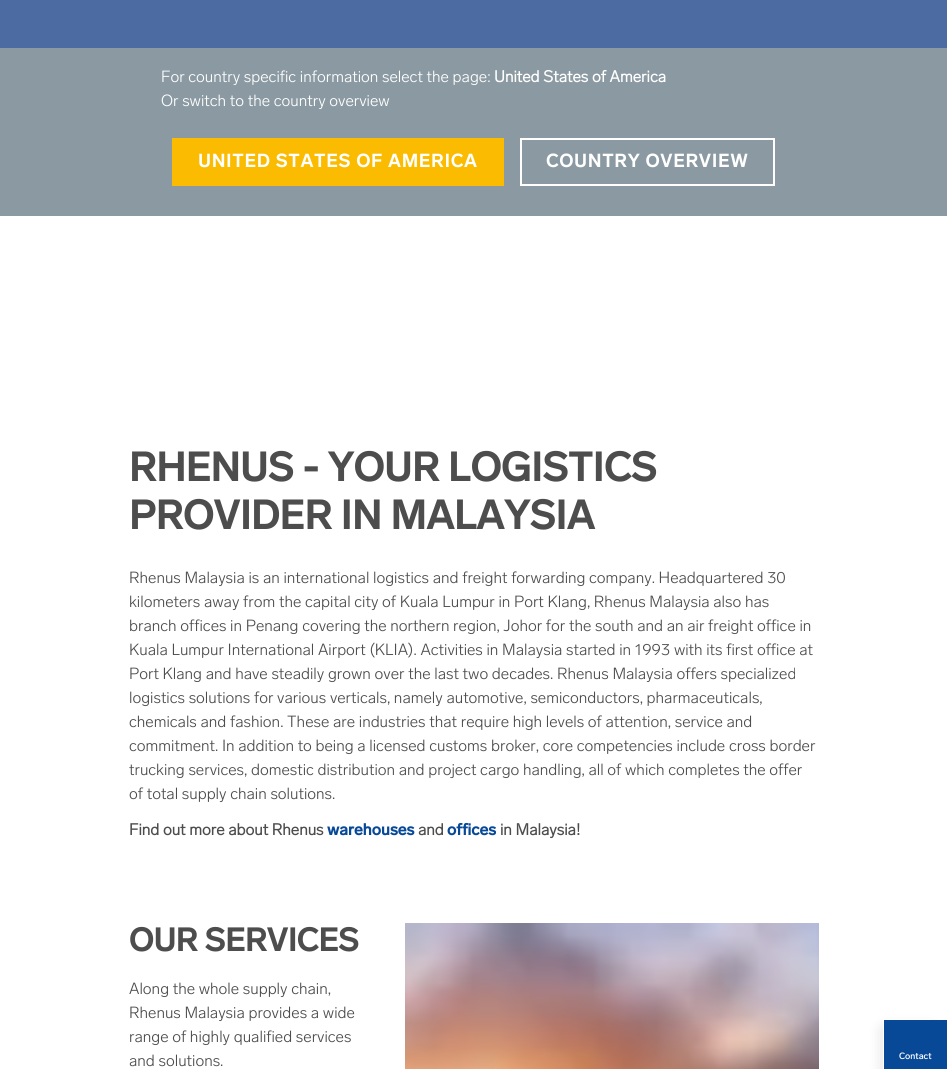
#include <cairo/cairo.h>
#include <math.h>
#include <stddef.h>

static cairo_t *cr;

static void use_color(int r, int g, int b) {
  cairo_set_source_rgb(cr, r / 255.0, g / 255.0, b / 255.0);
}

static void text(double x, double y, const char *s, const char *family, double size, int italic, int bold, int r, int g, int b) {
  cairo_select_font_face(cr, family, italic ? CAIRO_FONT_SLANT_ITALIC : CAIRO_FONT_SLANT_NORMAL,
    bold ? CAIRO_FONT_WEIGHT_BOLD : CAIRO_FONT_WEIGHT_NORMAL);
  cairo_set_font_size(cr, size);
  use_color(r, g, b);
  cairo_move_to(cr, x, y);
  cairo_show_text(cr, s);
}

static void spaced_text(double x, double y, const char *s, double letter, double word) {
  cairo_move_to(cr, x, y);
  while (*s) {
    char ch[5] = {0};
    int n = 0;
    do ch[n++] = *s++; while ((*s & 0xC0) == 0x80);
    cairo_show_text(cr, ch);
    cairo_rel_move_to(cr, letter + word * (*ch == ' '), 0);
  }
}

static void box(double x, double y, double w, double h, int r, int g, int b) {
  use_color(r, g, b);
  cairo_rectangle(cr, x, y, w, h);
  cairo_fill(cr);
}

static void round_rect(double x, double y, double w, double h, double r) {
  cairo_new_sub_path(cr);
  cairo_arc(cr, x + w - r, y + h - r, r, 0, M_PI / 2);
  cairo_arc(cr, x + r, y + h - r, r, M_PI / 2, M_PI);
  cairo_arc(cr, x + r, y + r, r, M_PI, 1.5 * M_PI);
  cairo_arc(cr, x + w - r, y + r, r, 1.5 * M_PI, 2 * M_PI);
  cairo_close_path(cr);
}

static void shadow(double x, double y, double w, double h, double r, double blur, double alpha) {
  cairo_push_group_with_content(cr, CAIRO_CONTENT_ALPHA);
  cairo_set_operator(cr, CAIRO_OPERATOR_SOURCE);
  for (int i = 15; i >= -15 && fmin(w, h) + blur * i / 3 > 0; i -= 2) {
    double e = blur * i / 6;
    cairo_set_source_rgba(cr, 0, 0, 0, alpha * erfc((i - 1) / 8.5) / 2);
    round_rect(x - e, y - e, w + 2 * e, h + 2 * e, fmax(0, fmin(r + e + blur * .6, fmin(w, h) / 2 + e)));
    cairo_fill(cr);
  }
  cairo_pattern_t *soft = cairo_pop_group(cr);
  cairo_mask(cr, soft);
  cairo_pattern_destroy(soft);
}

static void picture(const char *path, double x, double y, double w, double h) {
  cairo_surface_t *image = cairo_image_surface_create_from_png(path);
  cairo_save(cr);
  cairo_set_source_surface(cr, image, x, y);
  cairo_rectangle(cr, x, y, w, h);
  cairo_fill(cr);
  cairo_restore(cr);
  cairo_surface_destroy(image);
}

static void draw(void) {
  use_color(255, 255, 255);
  cairo_paint(cr);
  box(0, 0, 947, 48, 77, 107, 163);
  box(0, 48, 947, 168, 139, 154, 162);
  box(172, 138, 332, 48, 250, 187, 0);
  cairo_rectangle(cr, 521, 139, 253, 46);
  use_color(255, 255, 255);
  cairo_stroke(cr);
  picture("img_01.png", 405, 923, 414, 146);
  use_color(0, 0, 0);
  shadow(884, 1029, 48, 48, 0, 8, 0.15);
  box(884, 1020, 63, 49, 8, 73, 151);
  box(883, 1019, 48, 1, 255, 255, 255);
  box(883, 1019, 1, 50, 255, 255, 255);
  text(161, 82, "For country specific information select the page:", "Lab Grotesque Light", 16, 0, 0, 255, 255, 255);
  text(494, 82, "United States of America", "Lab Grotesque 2", 16, 0, 1, 255, 255, 255);
  text(161, 106, "Or switch to the country overview", "Lab Grotesque Light", 16, 0, 0, 255, 255, 255);
  cairo_select_font_face(cr, "Lab Grotesque", CAIRO_FONT_SLANT_NORMAL, CAIRO_FONT_WEIGHT_BOLD);
  cairo_set_font_size(cr, 18);
  spaced_text(198, 167, "UNITED STATES OF AMERICA", 1.1, 0);
  spaced_text(546, 167, "COUNTRY OVERVIEW", 1.1, 0);
  text(129, 481, "RHENUS - YOUR LOGISTICS", "Lab Grotesque", 40, 0, 1, 77, 77, 77);
  text(129, 529, "PROVIDER IN MALAYSIA", "Lab Grotesque", 40, 0, 1, 77, 77, 77);
  text(129, 583, "Rhenus Malaysia is an international logistics and freight forwarding company. Headquartered 30", "Lab Grotesque Light", 16, 0, 0, 77, 77, 77);
  text(129, 607, "kilometers away from the capital city of Kuala Lumpur in Port Klang, Rhenus Malaysia also has", "Lab Grotesque Light", 16, 0, 0, 77, 77, 77);
  text(129, 631, "branch offices in Penang covering the northern region, Johor for the south and an air freight office in", "Lab Grotesque Light", 16, 0, 0, 77, 77, 77);
  text(129, 655, "Kuala Lumpur International Airport (KLIA). Activities in Malaysia started in 1993 with its first office at", "Lab Grotesque Light", 16, 0, 0, 77, 77, 77);
  text(129, 679, "Port Klang and have steadily grown over the last two decades. Rhenus Malaysia offers specialized", "Lab Grotesque Light", 16, 0, 0, 77, 77, 77);
  text(129, 703, "logistics solutions for various verticals, namely automotive, semiconductors, pharmaceuticals,", "Lab Grotesque Light", 16, 0, 0, 77, 77, 77);
  text(129, 727, "chemicals and fashion. These are industries that require high levels of attention, service and", "Lab Grotesque Light", 16, 0, 0, 77, 77, 77);
  text(129, 751, "commitment. In addition to being a licensed customs broker, core competencies include cross border", "Lab Grotesque Light", 16, 0, 0, 77, 77, 77);
  text(129, 775, "trucking services, domestic distribution and project cargo handling, all of which completes the offer", "Lab Grotesque Light", 16, 0, 0, 77, 77, 77);
  text(129, 799, "of total supply chain solutions.", "Lab Grotesque Light", 16, 0, 0, 77, 77, 77);
  text(129, 835, "Find out more about Rhenus", "Lab Grotesque 2", 16, 0, 1, 77, 77, 77);
  text(327, 835, "warehouses", "Lab Grotesque", 16, 0, 1, 8, 73, 151);
  text(418, 835, "and", "Lab Grotesque 2", 16, 0, 1, 77, 77, 77);
  text(447, 835, "offices", "Lab Grotesque", 16, 0, 1, 8, 73, 151);
  text(500, 835, "in Malaysia!", "Lab Grotesque 2", 16, 0, 1, 77, 77, 77);
  text(129, 951, "OUR SERVICES", "Lab Grotesque", 32, 0, 1, 77, 77, 77);
  text(129, 994, "Along the whole supply chain,", "Lab Grotesque Light", 16, 0, 0, 77, 77, 77);
  text(129, 1018, "Rhenus Malaysia provides a wide", "Lab Grotesque Light", 16, 0, 0, 77, 77, 77);
  text(129, 1042, "range of highly qualified services", "Lab Grotesque Light", 16, 0, 0, 77, 77, 77);
  text(129, 1066, "and solutions.", "Lab Grotesque Light", 16, 0, 0, 77, 77, 77);
  text(899, 1059, "Contact", "Lab Grotesque Medium", 9, 0, 0, 255, 255, 255);
}

int main(void) {
  cairo_surface_t *surface = cairo_image_surface_create(CAIRO_FORMAT_RGB24, 947, 1069);
  cr = cairo_create(surface);
  cairo_font_options_t *options = cairo_font_options_create();
  cairo_font_options_set_hint_metrics(options, CAIRO_HINT_METRICS_OFF);
  cairo_font_options_set_hint_style(options, CAIRO_HINT_STYLE_NONE);
  cairo_set_font_options(cr, options);
  cairo_set_miter_limit(cr, 4);
  draw();
  cairo_surface_write_to_png(surface, "out.png");
  cairo_font_options_destroy(options);
  cairo_destroy(cr);
  cairo_surface_destroy(surface);
  return 0;
}
